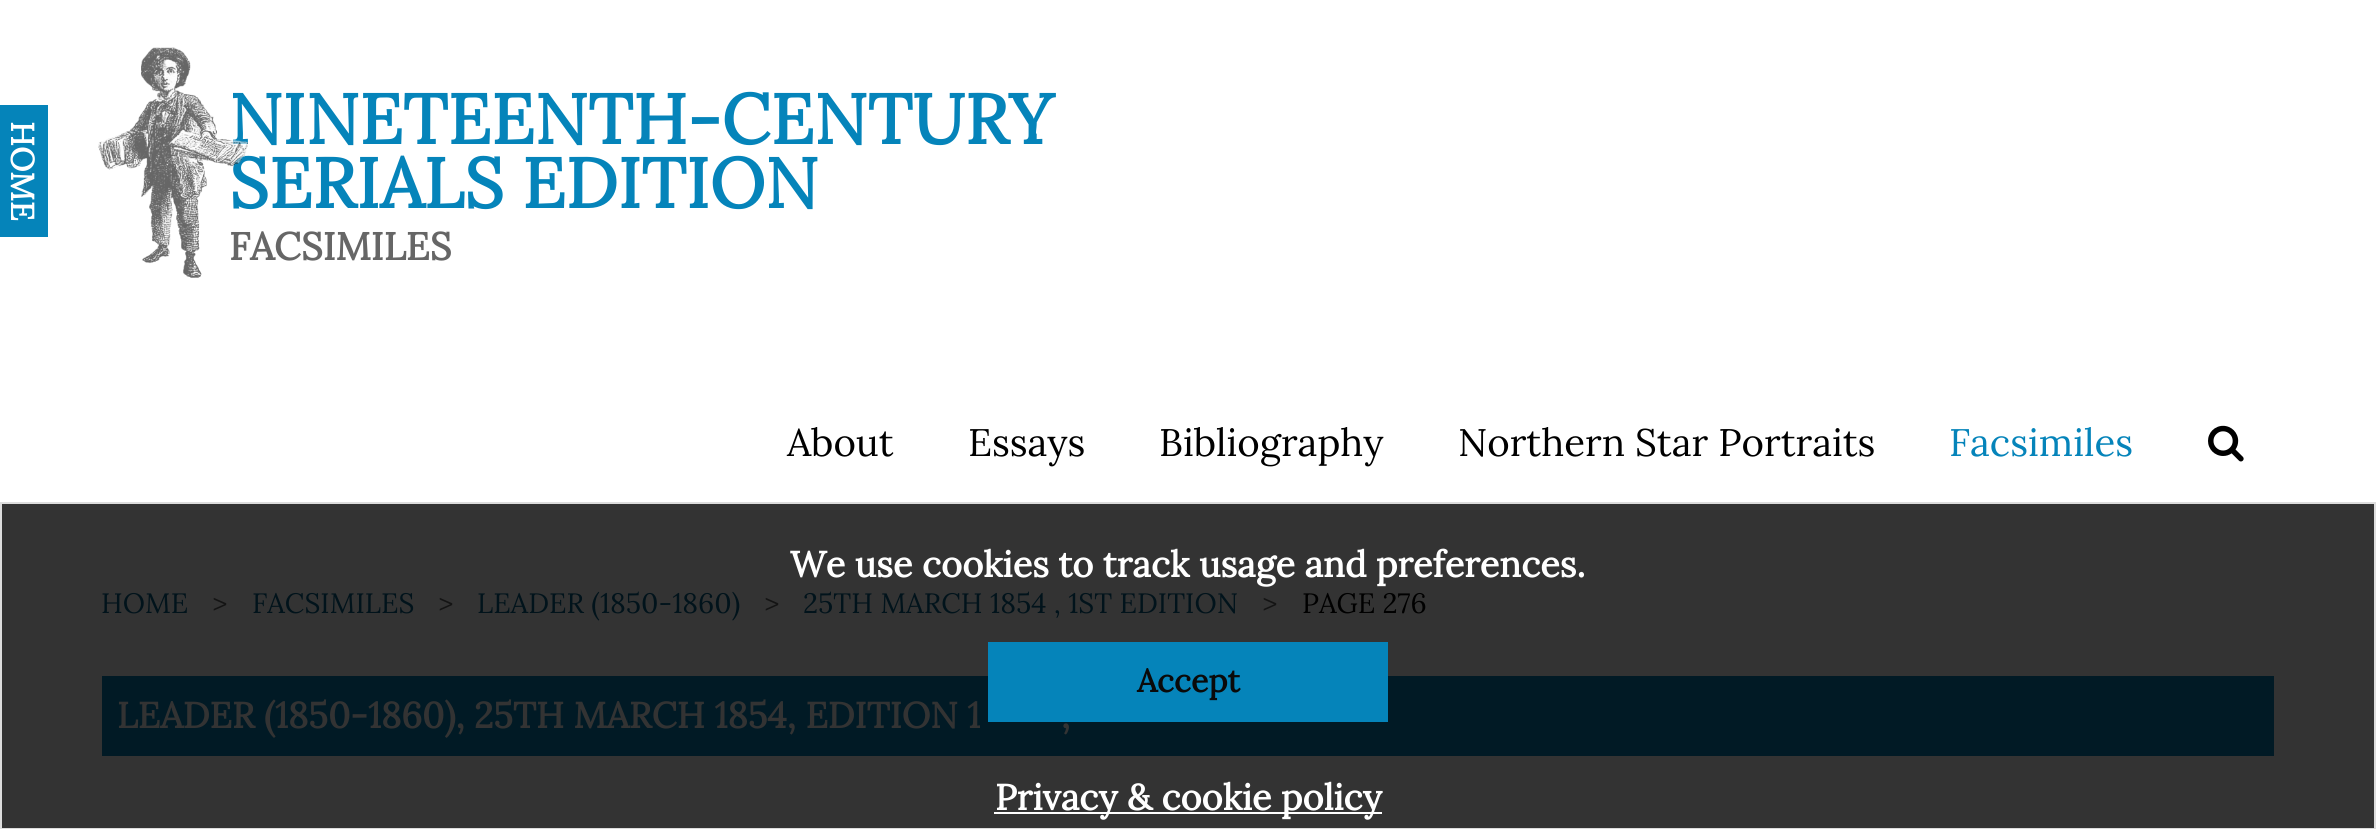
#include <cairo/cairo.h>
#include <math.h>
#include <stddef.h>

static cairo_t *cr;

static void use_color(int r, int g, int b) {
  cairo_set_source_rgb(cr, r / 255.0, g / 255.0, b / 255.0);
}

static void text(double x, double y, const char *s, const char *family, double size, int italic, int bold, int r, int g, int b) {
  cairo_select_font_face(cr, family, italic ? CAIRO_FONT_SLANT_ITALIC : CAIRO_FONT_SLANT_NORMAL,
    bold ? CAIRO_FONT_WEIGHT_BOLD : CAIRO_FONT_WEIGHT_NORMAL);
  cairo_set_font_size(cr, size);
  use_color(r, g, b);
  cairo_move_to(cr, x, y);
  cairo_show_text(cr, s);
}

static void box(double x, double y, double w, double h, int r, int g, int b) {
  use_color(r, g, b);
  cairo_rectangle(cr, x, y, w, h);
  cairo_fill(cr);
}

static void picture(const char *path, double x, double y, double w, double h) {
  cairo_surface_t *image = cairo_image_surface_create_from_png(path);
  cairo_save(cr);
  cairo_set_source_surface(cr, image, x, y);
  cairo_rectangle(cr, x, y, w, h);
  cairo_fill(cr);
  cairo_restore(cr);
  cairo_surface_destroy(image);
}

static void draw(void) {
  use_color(255, 255, 255);
  cairo_paint(cr);
  box(2, 504, 2372, 324, 51, 51, 51);
  box(0, 105, 48, 132, 5, 132, 186);
  picture("img_02.png", 2208, 425, 36, 37);
  box(102, 676, 2172, 80, 1, 26, 37);
  cairo_rectangle(cr, 1, 503, 2374, 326);
  use_color(221, 221, 221);
  cairo_stroke(cr);
  box(988, 642, 400, 80, 5, 132, 186);
  box(994, 812, 388, 2, 255, 255, 255);
  cairo_save(cr);
  cairo_translate(cr, 11, 121);
  cairo_rotate(cr, 90 * M_PI / 180);
  text(0, 0, "HOME", "Lora", 32, 0, 1, 255, 255, 255);
  cairo_restore(cr);
  text(229, 144, "NINETEENTH-CENTURY", "Lora", 70, 0, 1, 5, 132, 186);
  text(229, 208, "SERIALS EDITION", "Lora", 70, 0, 1, 5, 132, 186);
  text(229, 260, "FACSIMILES", "Lora", 38.4, 0, 1, 102, 102, 102);
  picture("img_01.png", 98, 47, 150, 231);
  text(787, 456, "About", "Lora", 38.4, 0, 0, 0, 0, 0);
  text(968, 456, "Essays", "Lora", 38.4, 0, 0, 0, 0, 0);
  text(1159, 456, "Bibliography", "Lora", 38.4, 0, 0, 0, 0, 0);
  text(1458, 456, "Northern Star Portraits", "Lora", 38.4, 0, 0, 0, 0, 0);
  text(1949, 456, "Facsimiles", "Lora", 38.4, 0, 0, 5, 132, 186);
  text(790, 577, "We use cookies to track usage and preferences.", "Lora", 36, 0, 1, 255, 255, 255);
  text(1137, 692, "Accept", "Lora", 32, 0, 1, 10, 10, 10);
  text(995, 810, "Privacy & cookie policy", "Lora", 36, 0, 1, 255, 255, 255);
  text(101, 613, "HOME", "Lora", 28, 0, 0, 1, 19, 27);
  text(212, 613, ">", "Lora", 28, 0, 0, 20, 20, 20);
  text(252, 613, "FACSIMILES", "Lora", 28, 0, 0, 1, 19, 27);
  text(438, 613, ">", "Lora", 28, 0, 0, 20, 20, 20);
  text(477, 613, "LEADER (1850-1860)", "Lora", 28, 0, 0, 1, 19, 27);
  text(764, 613, ">", "Lora", 28, 0, 0, 20, 20, 20);
  text(803, 613, "25TH MARCH 1854 , 1ST EDITION", "Lora", 28, 0, 0, 1, 19, 27);
  text(1262, 613, ">", "Lora", 28, 0, 0, 20, 20, 20);
  text(1302, 613, "PAGE 276", "Lora", 28, 0, 0, 0, 0, 0);
  text(117, 728, "LEADER (1850-1860), 25TH MARCH 1854, EDITION 1", "Lora", 36, 0, 1, 51, 51, 51);
  text(1061, 728, ",", "Lora", 36, 0, 1, 51, 51, 51);
}

int main(void) {
  cairo_surface_t *surface = cairo_image_surface_create(CAIRO_FORMAT_RGB24, 2376, 829);
  cr = cairo_create(surface);
  cairo_font_options_t *options = cairo_font_options_create();
  cairo_font_options_set_hint_metrics(options, CAIRO_HINT_METRICS_OFF);
  cairo_font_options_set_hint_style(options, CAIRO_HINT_STYLE_NONE);
  cairo_set_font_options(cr, options);
  cairo_set_miter_limit(cr, 4);
  draw();
  cairo_surface_write_to_png(surface, "out.png");
  cairo_font_options_destroy(options);
  cairo_destroy(cr);
  cairo_surface_destroy(surface);
  return 0;
}
